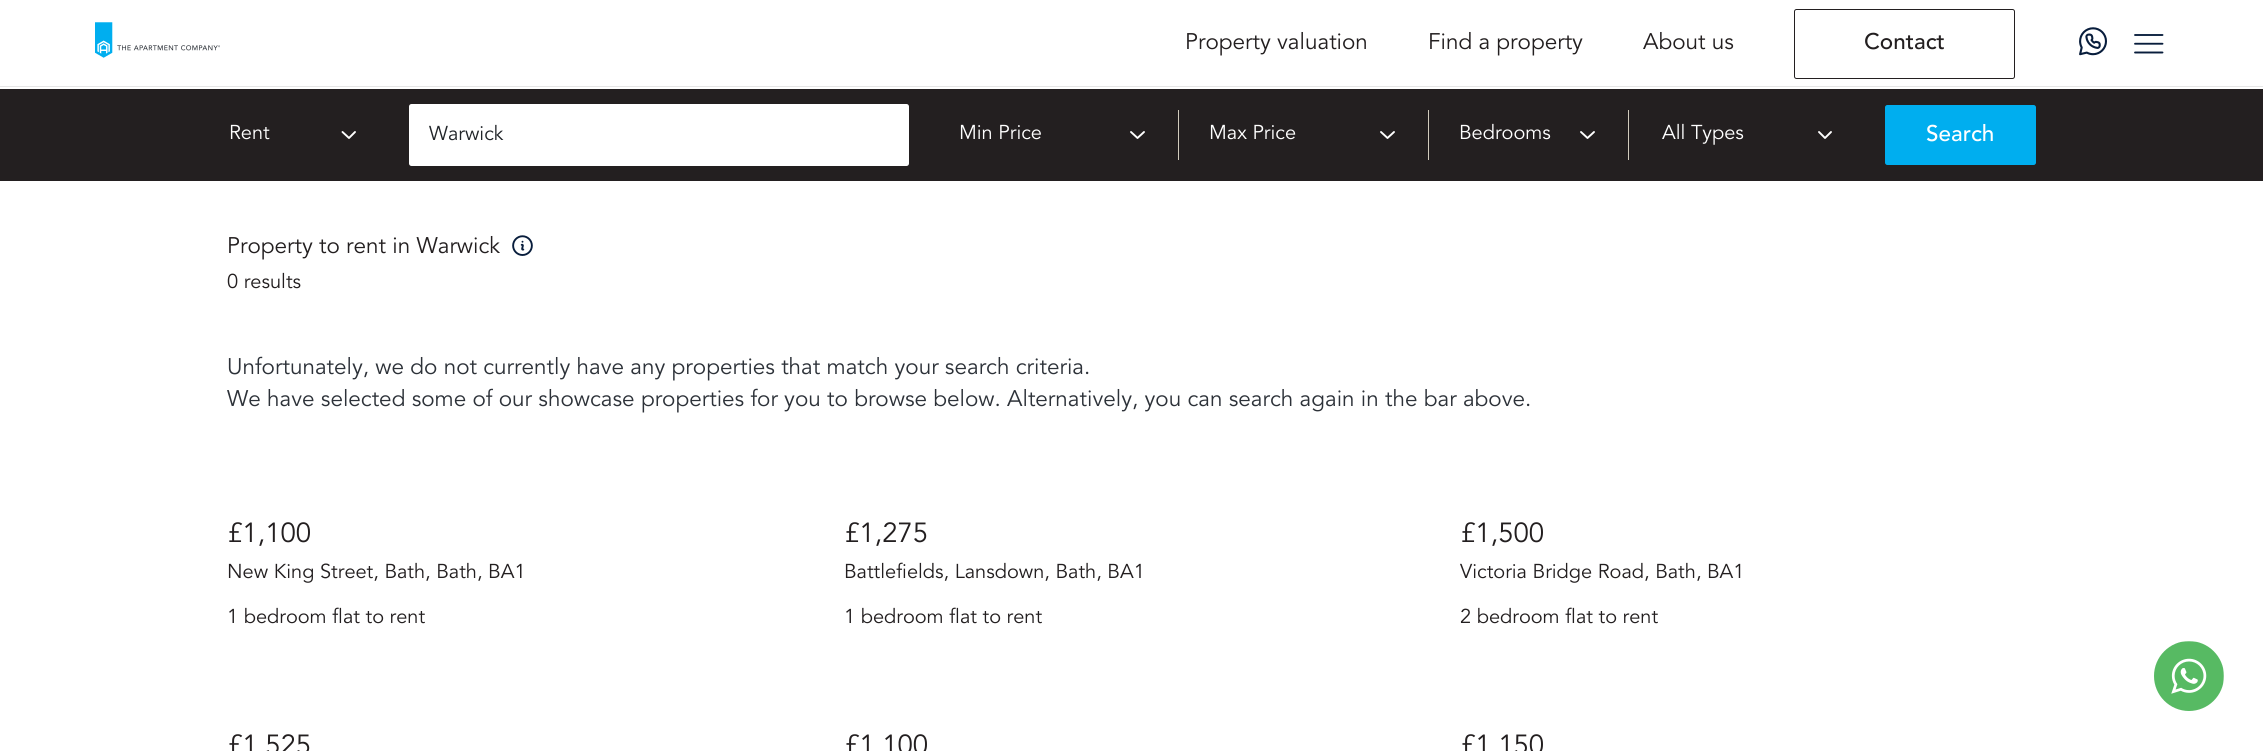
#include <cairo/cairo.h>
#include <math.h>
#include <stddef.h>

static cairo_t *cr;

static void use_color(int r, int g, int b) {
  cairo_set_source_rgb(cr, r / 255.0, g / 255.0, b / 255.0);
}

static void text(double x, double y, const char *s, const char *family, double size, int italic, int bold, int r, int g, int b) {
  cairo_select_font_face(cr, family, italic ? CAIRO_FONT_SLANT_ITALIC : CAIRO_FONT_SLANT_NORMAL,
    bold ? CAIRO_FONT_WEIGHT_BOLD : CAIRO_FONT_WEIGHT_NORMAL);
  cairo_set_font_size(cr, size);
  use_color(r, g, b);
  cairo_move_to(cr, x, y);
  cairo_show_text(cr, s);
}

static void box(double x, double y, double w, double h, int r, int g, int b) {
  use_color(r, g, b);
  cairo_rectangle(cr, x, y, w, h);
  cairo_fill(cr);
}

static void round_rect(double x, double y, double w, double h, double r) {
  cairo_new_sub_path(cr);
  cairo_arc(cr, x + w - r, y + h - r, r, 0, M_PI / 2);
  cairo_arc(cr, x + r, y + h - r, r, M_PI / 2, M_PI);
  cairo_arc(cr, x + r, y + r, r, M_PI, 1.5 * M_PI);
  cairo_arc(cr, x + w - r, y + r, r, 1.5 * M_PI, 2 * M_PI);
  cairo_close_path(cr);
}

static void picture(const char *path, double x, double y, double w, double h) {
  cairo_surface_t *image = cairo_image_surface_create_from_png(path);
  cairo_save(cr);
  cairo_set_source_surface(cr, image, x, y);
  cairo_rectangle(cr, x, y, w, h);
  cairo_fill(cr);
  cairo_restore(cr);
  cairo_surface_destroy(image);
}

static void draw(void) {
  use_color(255, 255, 255);
  cairo_paint(cr);
  box(0, 86, 2263, 1, 230, 230, 230);
  picture("img_01.png", 95, 22, 125, 36);
  round_rect(1794.5, 9.5, 220, 69, 2);
  use_color(35, 31, 32);
  cairo_set_line_width(cr, 1);
  cairo_stroke(cr);
  picture("img_02.png", 2079, 27, 28, 29);
  picture("img_03.png", 2134, 34, 30, 20);
  box(0, 89, 2263, 92, 35, 31, 32);
  cairo_new_path(cr);
  cairo_move_to(cr, 355, 132);
  cairo_line_to(cr, 349, 138);
  cairo_line_to(cr, 342.5, 132);
  use_color(255, 255, 255);
  cairo_set_line_width(cr, 1.9);
  cairo_set_line_cap(cr, CAIRO_LINE_CAP_ROUND);
  cairo_set_line_join(cr, CAIRO_LINE_JOIN_ROUND);
  cairo_stroke(cr);
  round_rect(409, 104, 500, 62, 2.5);
  cairo_fill(cr);
  cairo_new_path(cr);
  cairo_move_to(cr, 1144, 132);
  cairo_line_to(cr, 1137.5, 138);
  cairo_line_to(cr, 1131, 132);
  cairo_stroke(cr);
  box(1178, 110, 1, 50, 209, 203, 189);
  cairo_new_path(cr);
  cairo_move_to(cr, 1394, 132);
  cairo_line_to(cr, 1387.5, 138);
  cairo_line_to(cr, 1381, 132);
  use_color(255, 255, 255);
  cairo_stroke(cr);
  box(1428, 110, 1, 50, 209, 203, 189);
  cairo_new_path(cr);
  cairo_move_to(cr, 1594, 132);
  cairo_line_to(cr, 1587.5, 138);
  cairo_line_to(cr, 1581, 132);
  use_color(255, 255, 255);
  cairo_stroke(cr);
  box(1628, 110, 1, 50, 209, 203, 189);
  cairo_new_path(cr);
  cairo_move_to(cr, 1831, 132);
  cairo_line_to(cr, 1825, 138);
  cairo_line_to(cr, 1819, 132);
  use_color(255, 255, 255);
  cairo_stroke(cr);
  use_color(0, 174, 239);
  round_rect(1885.5, 105.5, 150, 59, 2);
  cairo_fill_preserve(cr);
  cairo_set_line_width(cr, 1);
  cairo_set_line_cap(cr, CAIRO_LINE_CAP_BUTT);
  cairo_set_line_join(cr, CAIRO_LINE_JOIN_MITER);
  cairo_stroke(cr);
  picture("img_04.png", 512, 235, 21, 21);
  picture("img_05.png", 2154, 641, 70, 70);
  text(1185, 49, "Property valuation", "Avenir", 22.5, 0, 0, 35, 31, 32);
  text(1428, 49, "Find a property", "Avenir", 22.5, 0, 0, 35, 31, 32);
  text(1643, 49, "About us", "Avenir", 22.5, 0, 0, 35, 31, 32);
  text(1864, 49, "Contact", "Avenir Medium", 22.5, 0, 0, 35, 31, 32);
  text(229, 139, "Rent", "Avenir", 20, 0, 0, 255, 255, 255);
  text(429, 140, "Warwick", "Avenir", 20, 0, 0, 33, 37, 41);
  text(959, 139, "Min Price", "Avenir", 20, 0, 0, 255, 255, 255);
  text(1209, 139, "Max Price", "Avenir", 20, 0, 0, 255, 255, 255);
  text(1459, 139, "Bedrooms", "Avenir", 20, 0, 0, 255, 255, 255);
  text(1662, 139, "All Types", "Avenir", 20, 0, 0, 255, 255, 255);
  text(1926, 141, "Search", "Avenir Medium", 22.5, 0, 0, 255, 255, 255);
  text(227, 253, "Property to rent in Warwick", "Avenir", 22.5, 0, 0, 35, 31, 32);
  text(227, 288, "0 results", "Avenir", 20, 0, 0, 35, 31, 32);
  text(227, 374, "Unfortunately, we do not currently have any properties that match your search criteria.", "Avenir", 22.5, 0, 0, 45, 50, 57);
  text(227, 406, "We have selected some of our showcase properties for you to browse below. Alternatively, you can search again in the bar above.", "Avenir", 22.5, 0, 0, 45, 50, 57);
  text(227, 542, "£1,100", "Avenir", 27.5, 0, 0, 35, 31, 32);
  text(227, 578, "New King Street, Bath, Bath, BA1", "Avenir", 20, 0, 0, 35, 31, 32);
  text(227, 623, "1 bedroom flat to rent", "Avenir", 20, 0, 0, 35, 31, 32);
  text(844, 542, "£1,275", "Avenir", 27.5, 0, 0, 35, 31, 32);
  text(844, 578, "Battlefields, Lansdown, Bath, BA1", "Avenir", 20, 0, 0, 35, 31, 32);
  text(844, 623, "1 bedroom flat to rent", "Avenir", 20, 0, 0, 35, 31, 32);
  text(1460, 542, "£1,500", "Avenir", 27.5, 0, 0, 35, 31, 32);
  text(1460, 578, "Victoria Bridge Road, Bath, BA1", "Avenir", 20, 0, 0, 35, 31, 32);
  text(1460, 623, "2 bedroom flat to rent", "Avenir", 20, 0, 0, 35, 31, 32);
  text(227, 754, "£1,525", "Avenir", 27.5, 0, 0, 35, 31, 32);
  text(844, 754, "£1,100", "Avenir", 27.5, 0, 0, 35, 31, 32);
  text(1460, 754, "£1,150", "Avenir", 27.5, 0, 0, 35, 31, 32);
}

int main(void) {
  cairo_surface_t *surface = cairo_image_surface_create(CAIRO_FORMAT_RGB24, 2263, 751);
  cr = cairo_create(surface);
  cairo_font_options_t *options = cairo_font_options_create();
  cairo_font_options_set_hint_metrics(options, CAIRO_HINT_METRICS_OFF);
  cairo_font_options_set_hint_style(options, CAIRO_HINT_STYLE_NONE);
  cairo_set_font_options(cr, options);
  cairo_set_miter_limit(cr, 4);
  draw();
  cairo_surface_write_to_png(surface, "out.png");
  cairo_font_options_destroy(options);
  cairo_destroy(cr);
  cairo_surface_destroy(surface);
  return 0;
}
